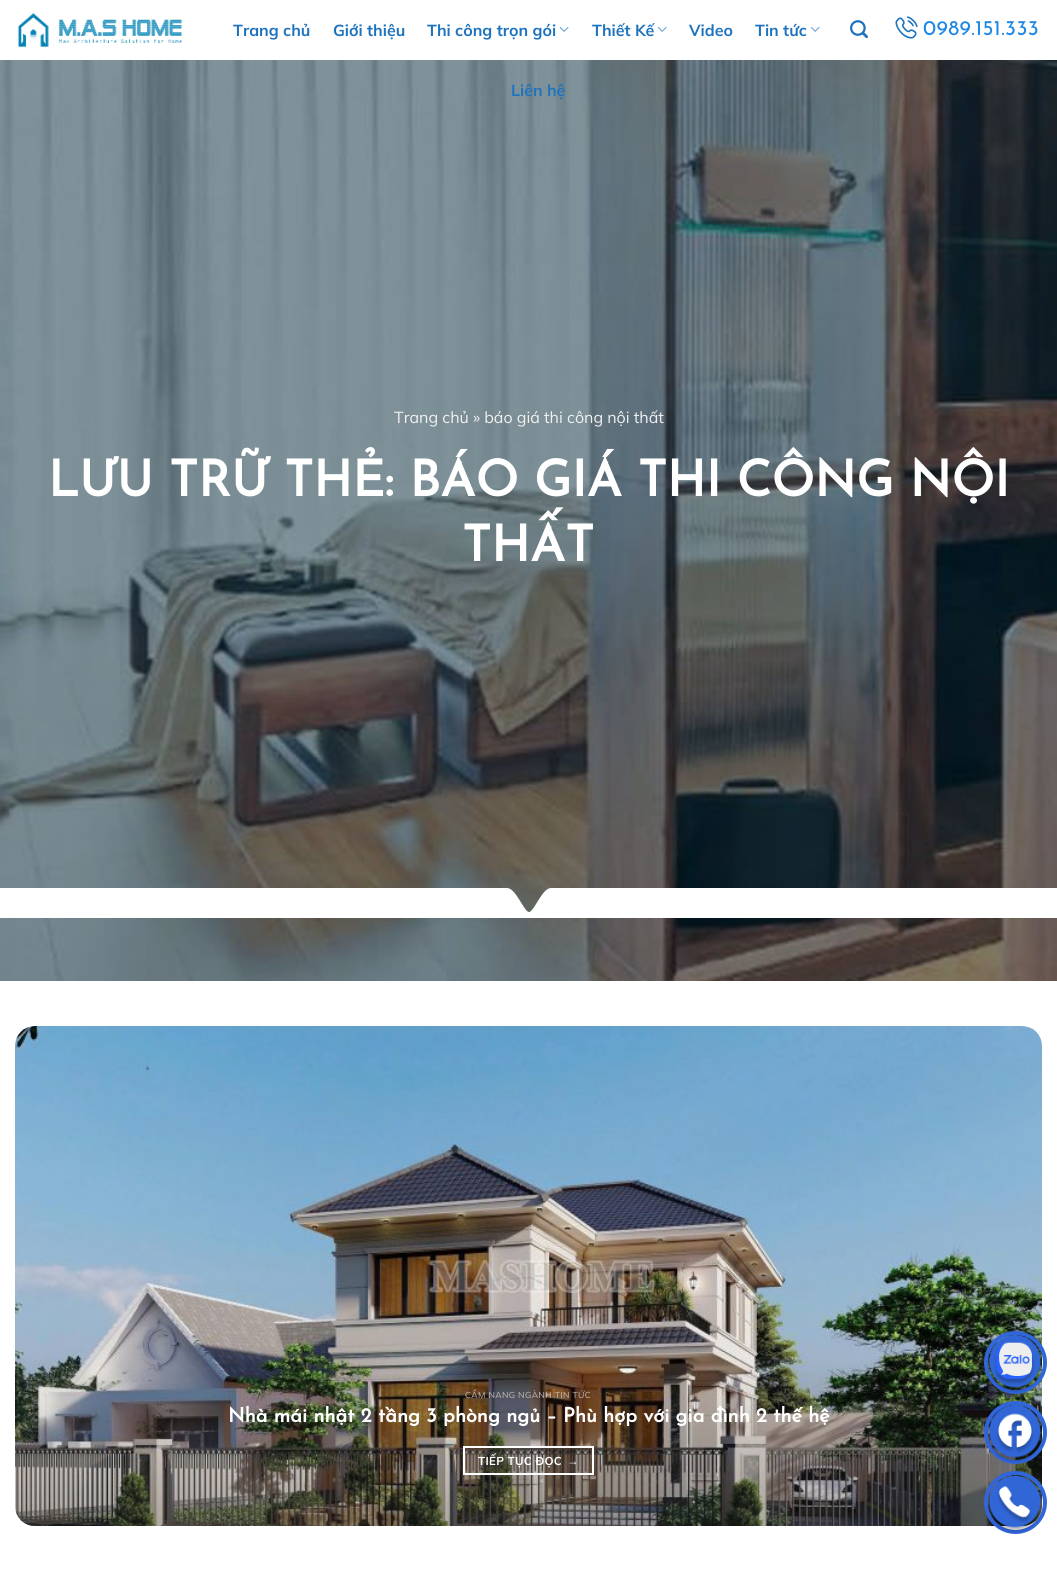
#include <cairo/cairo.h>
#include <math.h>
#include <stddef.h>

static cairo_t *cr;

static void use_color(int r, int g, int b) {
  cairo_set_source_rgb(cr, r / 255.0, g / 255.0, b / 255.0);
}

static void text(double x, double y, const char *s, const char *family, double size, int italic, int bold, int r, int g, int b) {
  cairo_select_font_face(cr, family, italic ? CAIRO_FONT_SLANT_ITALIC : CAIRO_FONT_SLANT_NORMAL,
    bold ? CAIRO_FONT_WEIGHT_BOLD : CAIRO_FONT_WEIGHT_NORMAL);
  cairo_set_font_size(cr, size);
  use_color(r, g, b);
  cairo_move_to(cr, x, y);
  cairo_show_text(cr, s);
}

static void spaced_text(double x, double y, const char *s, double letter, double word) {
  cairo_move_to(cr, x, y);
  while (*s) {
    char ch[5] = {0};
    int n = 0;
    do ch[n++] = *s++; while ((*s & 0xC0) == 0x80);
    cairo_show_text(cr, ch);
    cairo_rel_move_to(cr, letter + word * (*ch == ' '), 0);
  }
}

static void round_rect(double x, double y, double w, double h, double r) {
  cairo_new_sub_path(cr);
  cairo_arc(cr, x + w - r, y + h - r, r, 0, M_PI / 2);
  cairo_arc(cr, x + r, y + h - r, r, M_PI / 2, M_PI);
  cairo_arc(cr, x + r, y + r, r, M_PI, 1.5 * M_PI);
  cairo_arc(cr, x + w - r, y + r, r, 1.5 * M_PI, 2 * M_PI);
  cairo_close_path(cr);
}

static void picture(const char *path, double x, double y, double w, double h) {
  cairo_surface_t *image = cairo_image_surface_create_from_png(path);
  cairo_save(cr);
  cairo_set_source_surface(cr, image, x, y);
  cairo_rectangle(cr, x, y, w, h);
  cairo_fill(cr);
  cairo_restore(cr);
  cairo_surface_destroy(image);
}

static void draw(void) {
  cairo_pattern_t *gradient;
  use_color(255, 255, 255);
  cairo_paint(cr);
  picture("img_01.png", 17, 13, 166, 35);
  picture("img_02.png", 559, 26, 10, 6);
  picture("img_02.png", 657, 26, 10, 6);
  picture("img_02.png", 810, 26, 10, 6);
  picture("img_03.png", 850, 20, 18, 19);
  picture("img_04.png", 895, 16, 23, 23);
  picture("img_05.png", 0, 60, 1057, 921);
  use_color(255, 255, 255);
  cairo_new_path(cr);
  cairo_move_to(cr, 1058, 918);
  cairo_line_to(cr, 0, 918);
  cairo_line_to(cr, 0, 888);
  cairo_line_to(cr, 507, 888);
  cairo_curve_to(cr, 516, 888, 524, 912, 529, 912);
  cairo_curve_to(cr, 534, 912, 542, 888, 551, 888);
  cairo_line_to(cr, 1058, 888);
  cairo_close_path(cr);
  cairo_fill(cr);
  picture("img_06.png", 15, 1026, 1027, 500);
  gradient = cairo_pattern_create_linear(529, 1526, 529, 1026);
  cairo_pattern_add_color_stop_rgba(gradient, 0, 0.196, 0.196, 0.196, 0.3);
  cairo_pattern_add_color_stop_rgba(gradient, 0.33, 0.196, 0.196, 0.196, 0);
  cairo_set_source(cr, gradient);
  cairo_pattern_destroy(gradient);
  round_rect(15, 1026, 1027, 500, 20);
  cairo_fill(cr);
  cairo_rectangle(cr, 464, 1447, 129, 27);
  use_color(255, 255, 255);
  cairo_stroke(cr);
  cairo_arc(cr, 1015.5, 1362.5, 29.5, 0, 2 * M_PI);
  use_color(49, 101, 218);
  cairo_set_line_width(cr, 4);
  cairo_stroke(cr);
  picture("img_07.png", 987, 1335, 56, 58);
  cairo_arc(cr, 1015.5, 1432.5, 29.5, 0, 2 * M_PI);
  cairo_stroke(cr);
  picture("img_08.png", 987, 1405, 56, 58);
  cairo_arc(cr, 1015.5, 1502.5, 29.5, 0, 2 * M_PI);
  cairo_stroke(cr);
  picture("img_09.png", 987, 1475, 56, 58);
  text(233, 36, "Trang chủ", "Mulish", 16, 0, 1, 30, 115, 190);
  text(333, 36, "Giới thiệu", "Mulish", 16, 0, 1, 30, 115, 190);
  text(427, 36, "Thi công trọn gói", "Mulish", 16, 0, 1, 30, 115, 190);
  text(592, 36, "Thiết Kế", "Mulish", 16, 0, 1, 30, 115, 190);
  text(689, 36, "Video", "Mulish", 16, 0, 1, 30, 115, 190);
  text(755, 36, "Tin tức", "Mulish", 16, 0, 1, 30, 115, 190);
  text(511, 96, "Liên hệ", "Mulish", 16, 0, 1, 30, 115, 190);
  cairo_select_font_face(cr, "Josefin Sans Thin", CAIRO_FONT_SLANT_NORMAL, CAIRO_FONT_WEIGHT_NORMAL);
  cairo_set_font_size(cr, 21);
  use_color(30, 136, 229);
  spaced_text(923, 35, "0989.151.333", 0.4, 0);
  text(394, 423, "Trang chủ » báo giá thi công nội thất", "Mulish", 16, 0, 0, 241, 241, 241);
  text(48, 496, "LƯU TRỮ THẺ: BÁO GIÁ THI CÔNG NỘI", "Josefin Sans", 50, 0, 1, 255, 255, 255);
  text(462, 561, "THẤT", "Josefin Sans", 50, 0, 1, 255, 255, 255);
  cairo_select_font_face(cr, "Mulish", CAIRO_FONT_SLANT_NORMAL, CAIRO_FONT_WEIGHT_NORMAL);
  cairo_set_font_size(cr, 8.6);
  use_color(195, 189, 185);
  spaced_text(465, 1398, "CẨM NANG NGÀNH TIN TỨC", 0.4, 0);
  text(228, 1422, "Nhà mái nhật 2 tầng 3 phòng ngủ – Phù hợp với gia đình 2 thế hệ", "Josefin Sans", 20, 0, 1, 255, 255, 255);
  cairo_select_font_face(cr, "Mulish", CAIRO_FONT_SLANT_NORMAL, CAIRO_FONT_WEIGHT_BOLD);
  cairo_set_font_size(cr, 11.5);
  spaced_text(478, 1465, "TIẾP TỤC ĐỌC", 0.3, 0);
  cairo_select_font_face(cr, "Liberation Sans", CAIRO_FONT_SLANT_NORMAL, CAIRO_FONT_WEIGHT_BOLD);
  spaced_text(567, 1465, "→", 0.3, 0);
}

int main(void) {
  cairo_surface_t *surface = cairo_image_surface_create(CAIRO_FORMAT_RGB24, 1057, 1595);
  cr = cairo_create(surface);
  cairo_font_options_t *options = cairo_font_options_create();
  cairo_font_options_set_hint_metrics(options, CAIRO_HINT_METRICS_OFF);
  cairo_font_options_set_hint_style(options, CAIRO_HINT_STYLE_NONE);
  cairo_set_font_options(cr, options);
  cairo_set_miter_limit(cr, 4);
  draw();
  cairo_surface_write_to_png(surface, "out.png");
  cairo_font_options_destroy(options);
  cairo_destroy(cr);
  cairo_surface_destroy(surface);
  return 0;
}
